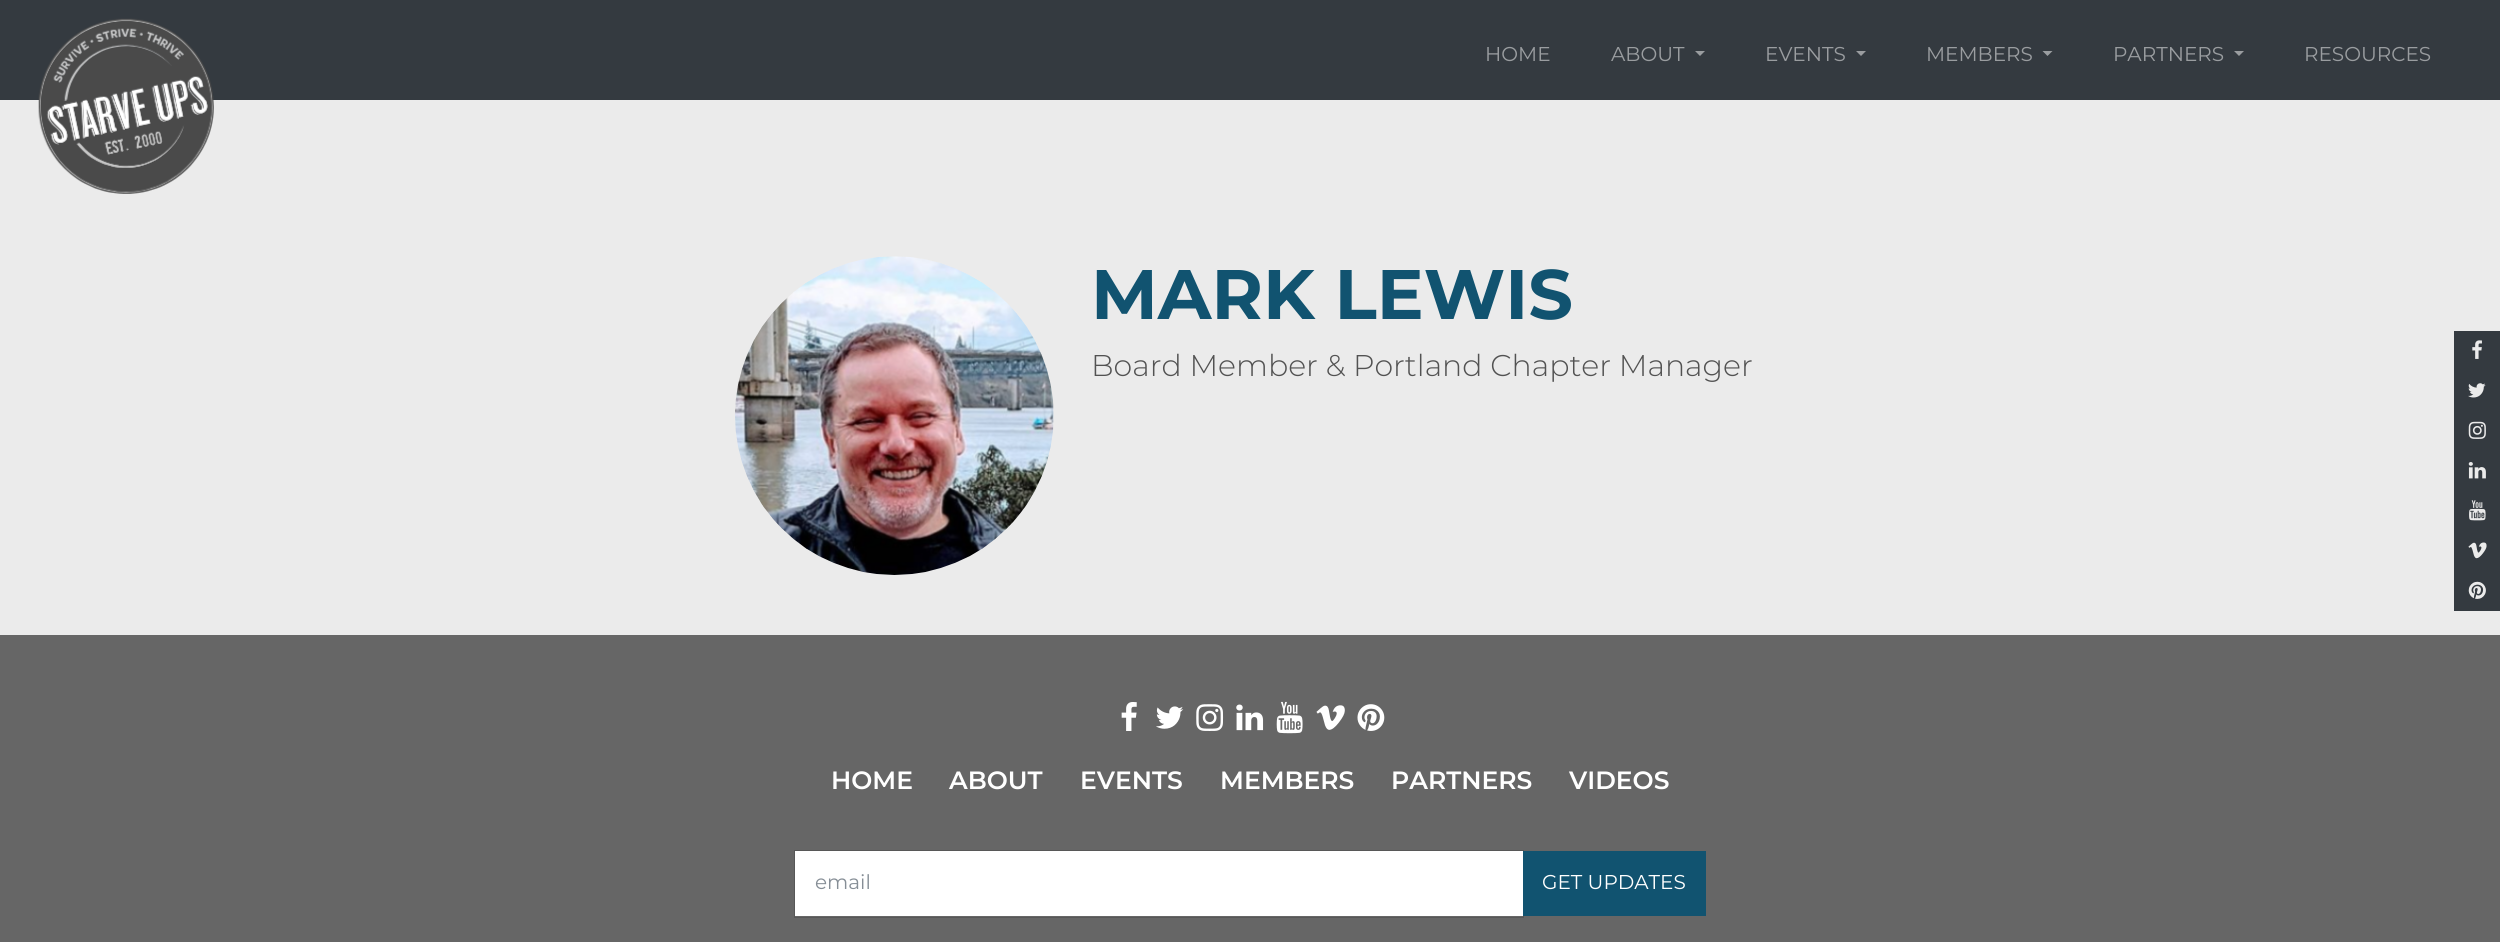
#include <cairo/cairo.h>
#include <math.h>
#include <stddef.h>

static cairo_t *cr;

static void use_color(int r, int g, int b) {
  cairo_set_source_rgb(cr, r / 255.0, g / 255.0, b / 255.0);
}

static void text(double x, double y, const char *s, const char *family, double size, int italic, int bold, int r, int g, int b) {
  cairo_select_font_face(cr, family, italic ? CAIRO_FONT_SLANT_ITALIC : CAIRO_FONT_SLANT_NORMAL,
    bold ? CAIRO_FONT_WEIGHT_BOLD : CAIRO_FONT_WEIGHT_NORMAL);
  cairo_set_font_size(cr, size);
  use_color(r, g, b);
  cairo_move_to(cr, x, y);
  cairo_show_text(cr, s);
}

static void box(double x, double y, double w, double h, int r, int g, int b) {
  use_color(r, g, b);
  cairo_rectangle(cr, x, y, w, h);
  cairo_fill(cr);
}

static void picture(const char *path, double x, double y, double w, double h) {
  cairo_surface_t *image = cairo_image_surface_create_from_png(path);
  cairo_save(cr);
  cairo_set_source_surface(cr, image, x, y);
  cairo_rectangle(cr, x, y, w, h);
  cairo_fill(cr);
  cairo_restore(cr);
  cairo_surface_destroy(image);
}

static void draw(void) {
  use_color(235, 235, 235);
  cairo_paint(cr);
  box(0, 0, 2500, 100, 52, 58, 64);
  picture("img_01.png", 38, 18, 176, 176);
  use_color(154, 157, 160);
  cairo_new_path(cr);
  cairo_move_to(cr, 1695, 51);
  cairo_line_to(cr, 1705, 51);
  cairo_line_to(cr, 1700, 56);
  cairo_close_path(cr);
  cairo_fill(cr);
  cairo_new_path(cr);
  cairo_move_to(cr, 1856, 51);
  cairo_line_to(cr, 1866, 51);
  cairo_line_to(cr, 1861, 56);
  cairo_close_path(cr);
  cairo_fill(cr);
  cairo_new_path(cr);
  cairo_move_to(cr, 2042.5, 51);
  cairo_line_to(cr, 2052.5, 51);
  cairo_line_to(cr, 2047.5, 56);
  cairo_close_path(cr);
  cairo_fill(cr);
  cairo_new_path(cr);
  cairo_move_to(cr, 2234, 51);
  cairo_line_to(cr, 2244, 51);
  cairo_line_to(cr, 2239, 56);
  cairo_close_path(cr);
  cairo_fill(cr);
  picture("img_02.png", 735, 256, 319, 319);
  box(2454, 331, 46, 280, 52, 58, 64);
  picture("img_03.png", 2472, 340, 10, 19);
  picture("img_04.png", 2468, 383, 18, 15);
  picture("img_05.png", 2468, 421, 18, 18);
  picture("img_06.png", 2468, 462, 18, 17);
  picture("img_07.png", 2469, 500, 17, 21);
  picture("img_08.png", 2468, 542, 19, 17);
  picture("img_09.png", 2468, 581, 18, 18);
  box(0, 635, 2500, 307, 102, 102, 102);
  picture("img_10.png", 1121, 702, 16, 29);
  picture("img_11.png", 1156, 706, 28, 23);
  picture("img_12.png", 1196, 704, 28, 27);
  picture("img_13.png", 1236, 704, 28, 27);
  picture("img_14.png", 1276, 701, 27, 33);
  picture("img_15.png", 1316, 705, 29, 25);
  picture("img_16.png", 1357, 704, 28, 27);
  box(795, 851, 728, 65, 255, 255, 255);
  cairo_rectangle(cr, 794.5, 850.5, 729, 67);
  use_color(87, 87, 87);
  cairo_set_line_width(cr, 1);
  cairo_stroke(cr);
  box(1523, 851, 183, 65, 17, 83, 112);
  text(1485, 61, "HOME", "Montserrat", 20, 0, 0, 154, 157, 160);
  text(1611, 61, "ABOUT", "Montserrat", 20, 0, 0, 154, 157, 160);
  text(1765, 61, "EVENTS", "Montserrat", 20, 0, 0, 154, 157, 160);
  text(1926, 61, "MEMBERS", "Montserrat", 20, 0, 0, 154, 157, 160);
  text(2113, 61, "PARTNERS", "Montserrat", 20, 0, 0, 154, 157, 160);
  text(2304, 61, "RESOURCES", "Montserrat", 20, 0, 0, 154, 157, 160);
  text(1091, 319, "MARK LEWIS", "Montserrat", 70, 0, 1, 17, 83, 112);
  text(1091, 376, "Board Member & Portland Chapter Manager", "Montserrat Light", 30, 0, 0, 82, 82, 82);
  text(831, 789, "HOME", "Montserrat SemiBold", 25, 0, 0, 255, 255, 255);
  text(949, 789, "ABOUT", "Montserrat SemiBold", 25, 0, 0, 255, 255, 255);
  text(1080, 789, "EVENTS", "Montserrat SemiBold", 25, 0, 0, 255, 255, 255);
  text(1220, 789, "MEMBERS", "Montserrat SemiBold", 25, 0, 0, 255, 255, 255);
  text(1391, 789, "PARTNERS", "Montserrat SemiBold", 25, 0, 0, 255, 255, 255);
  text(1569, 789, "VIDEOS", "Montserrat SemiBold", 25, 0, 0, 255, 255, 255);
  text(815, 889, "email", "Montserrat", 20, 0, 0, 134, 142, 150);
  text(1542, 889, "GET UPDATES", "Montserrat", 20, 0, 0, 255, 255, 255);
}

int main(void) {
  cairo_surface_t *surface = cairo_image_surface_create(CAIRO_FORMAT_RGB24, 2500, 942);
  cr = cairo_create(surface);
  cairo_font_options_t *options = cairo_font_options_create();
  cairo_font_options_set_hint_metrics(options, CAIRO_HINT_METRICS_OFF);
  cairo_font_options_set_hint_style(options, CAIRO_HINT_STYLE_NONE);
  cairo_set_font_options(cr, options);
  cairo_set_miter_limit(cr, 4);
  draw();
  cairo_surface_write_to_png(surface, "out.png");
  cairo_font_options_destroy(options);
  cairo_destroy(cr);
  cairo_surface_destroy(surface);
  return 0;
}
